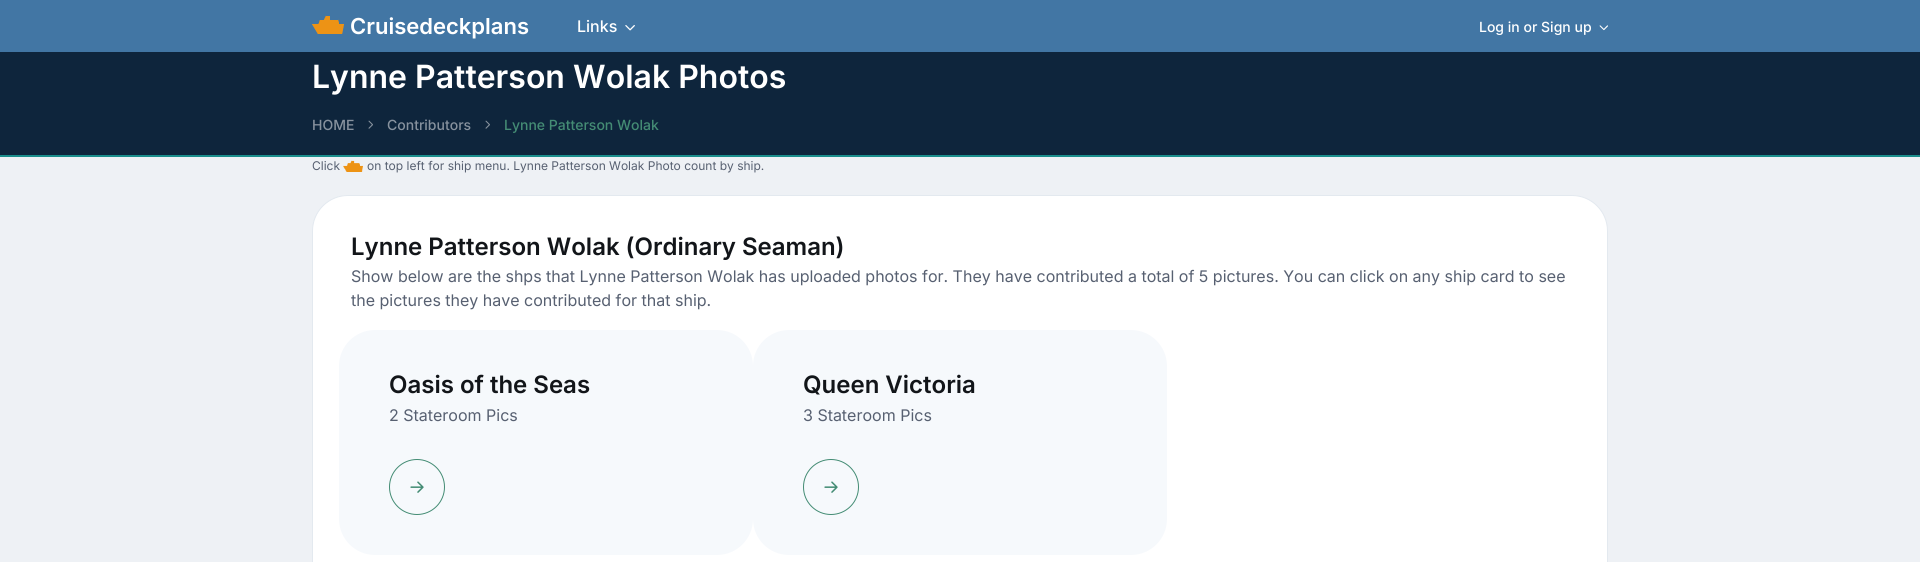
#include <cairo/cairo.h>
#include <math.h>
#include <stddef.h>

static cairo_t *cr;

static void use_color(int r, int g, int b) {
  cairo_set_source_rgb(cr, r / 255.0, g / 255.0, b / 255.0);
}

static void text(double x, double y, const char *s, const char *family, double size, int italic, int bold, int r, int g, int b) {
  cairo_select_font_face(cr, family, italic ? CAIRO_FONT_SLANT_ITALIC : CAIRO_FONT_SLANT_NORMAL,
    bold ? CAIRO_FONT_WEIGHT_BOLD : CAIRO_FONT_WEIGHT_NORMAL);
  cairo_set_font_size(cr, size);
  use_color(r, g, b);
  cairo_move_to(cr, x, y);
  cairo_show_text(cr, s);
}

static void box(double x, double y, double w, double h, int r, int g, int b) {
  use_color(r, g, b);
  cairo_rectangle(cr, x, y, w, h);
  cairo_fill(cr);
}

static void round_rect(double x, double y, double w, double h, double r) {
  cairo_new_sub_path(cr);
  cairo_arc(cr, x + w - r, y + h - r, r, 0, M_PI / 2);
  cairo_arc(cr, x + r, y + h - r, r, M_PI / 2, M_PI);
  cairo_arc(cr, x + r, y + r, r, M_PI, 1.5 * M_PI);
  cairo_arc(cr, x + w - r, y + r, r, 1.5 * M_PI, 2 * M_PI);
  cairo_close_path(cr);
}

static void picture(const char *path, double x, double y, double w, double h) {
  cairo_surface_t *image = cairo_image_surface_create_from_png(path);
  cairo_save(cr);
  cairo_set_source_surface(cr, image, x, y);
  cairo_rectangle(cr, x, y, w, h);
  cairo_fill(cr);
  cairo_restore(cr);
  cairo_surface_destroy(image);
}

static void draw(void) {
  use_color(238, 241, 245);
  cairo_paint(cr);
  box(0, 0, 1920, 52, 66, 118, 164);
  picture("img_01.png", 312, 15, 32, 19);
  picture("img_02.png", 625, 25, 10, 6);
  picture("img_03.png", 1599, 25, 9, 6);
  box(0, 52, 1920, 103, 14, 37, 60);
  box(0, 155, 1920, 2, 26, 142, 140);
  picture("img_04.png", 368, 120, 5, 9);
  picture("img_04.png", 485, 120, 5, 9);
  picture("img_05.png", 343, 160, 20, 12);
  use_color(255, 255, 255);
  round_rect(312.5, 195.5, 1295, 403, 35.5);
  cairo_fill_preserve(cr);
  use_color(227, 233, 239);
  cairo_set_line_width(cr, 1);
  cairo_stroke(cr);
  use_color(246, 249, 252);
  round_rect(339, 330, 414, 225, 36);
  cairo_fill(cr);
  cairo_arc(cr, 417, 487, 27.5, 0, 2 * M_PI);
  use_color(68, 140, 116);
  cairo_stroke(cr);
  picture("img_06.png", 410, 481, 14, 12);
  use_color(246, 249, 252);
  round_rect(753, 330, 414, 225, 36);
  cairo_fill(cr);
  cairo_arc(cr, 831, 487, 27.5, 0, 2 * M_PI);
  use_color(68, 140, 116);
  cairo_stroke(cr);
  picture("img_06.png", 824, 481, 14, 12);
  text(350, 34, "Cruisedeckplans", "Inter SemiBold", 22, 0, 0, 255, 255, 255);
  text(577, 32, "Links", "Inter Medium", 16, 0, 0, 255, 255, 255);
  text(1479, 32, "Log in or Sign up", "Inter Medium", 14, 0, 0, 255, 255, 255);
  text(312, 88, "Lynne Patterson Wolak Photos", "Inter SemiBold", 32, 0, 0, 255, 255, 255);
  text(312, 130, "HOME", "Inter Medium", 14, 0, 0, 135, 146, 158);
  text(387, 130, "Contributors", "Inter Medium", 14, 0, 0, 135, 146, 158);
  text(504, 130, "Lynne Patterson Wolak", "Inter Medium", 14, 0, 0, 68, 140, 116);
  text(312, 170, "Click", "Inter", 12, 0, 0, 87, 96, 113);
  text(367, 170, "on top left for ship menu. Lynne Patterson Wolak Photo count by ship.", "Inter", 12, 0, 0, 87, 96, 113);
  text(351, 255, "Lynne Patterson Wolak (Ordinary Seaman)", "Inter SemiBold", 24, 0, 0, 18, 21, 25);
  text(351, 282, "Show below are the shps that Lynne Patterson Wolak has uploaded photos for. They have contributed a total of 5 pictures. You can click on any ship card to see", "Inter", 16, 0, 0, 87, 96, 113);
  text(351, 306, "the pictures they have contributed for that ship.", "Inter", 16, 0, 0, 87, 96, 113);
  text(389, 393, "Oasis of the Seas", "Inter SemiBold", 24, 0, 0, 18, 21, 25);
  text(389, 421, "2 Stateroom Pics", "Inter", 16, 0, 0, 87, 96, 113);
  text(803, 393, "Queen Victoria", "Inter SemiBold", 24, 0, 0, 18, 21, 25);
  text(803, 421, "3 Stateroom Pics", "Inter", 16, 0, 0, 87, 96, 113);
}

int main(void) {
  cairo_surface_t *surface = cairo_image_surface_create(CAIRO_FORMAT_RGB24, 1920, 562);
  cr = cairo_create(surface);
  cairo_font_options_t *options = cairo_font_options_create();
  cairo_font_options_set_hint_metrics(options, CAIRO_HINT_METRICS_OFF);
  cairo_font_options_set_hint_style(options, CAIRO_HINT_STYLE_NONE);
  cairo_set_font_options(cr, options);
  cairo_set_miter_limit(cr, 4);
  draw();
  cairo_surface_write_to_png(surface, "out.png");
  cairo_font_options_destroy(options);
  cairo_destroy(cr);
  cairo_surface_destroy(surface);
  return 0;
}
